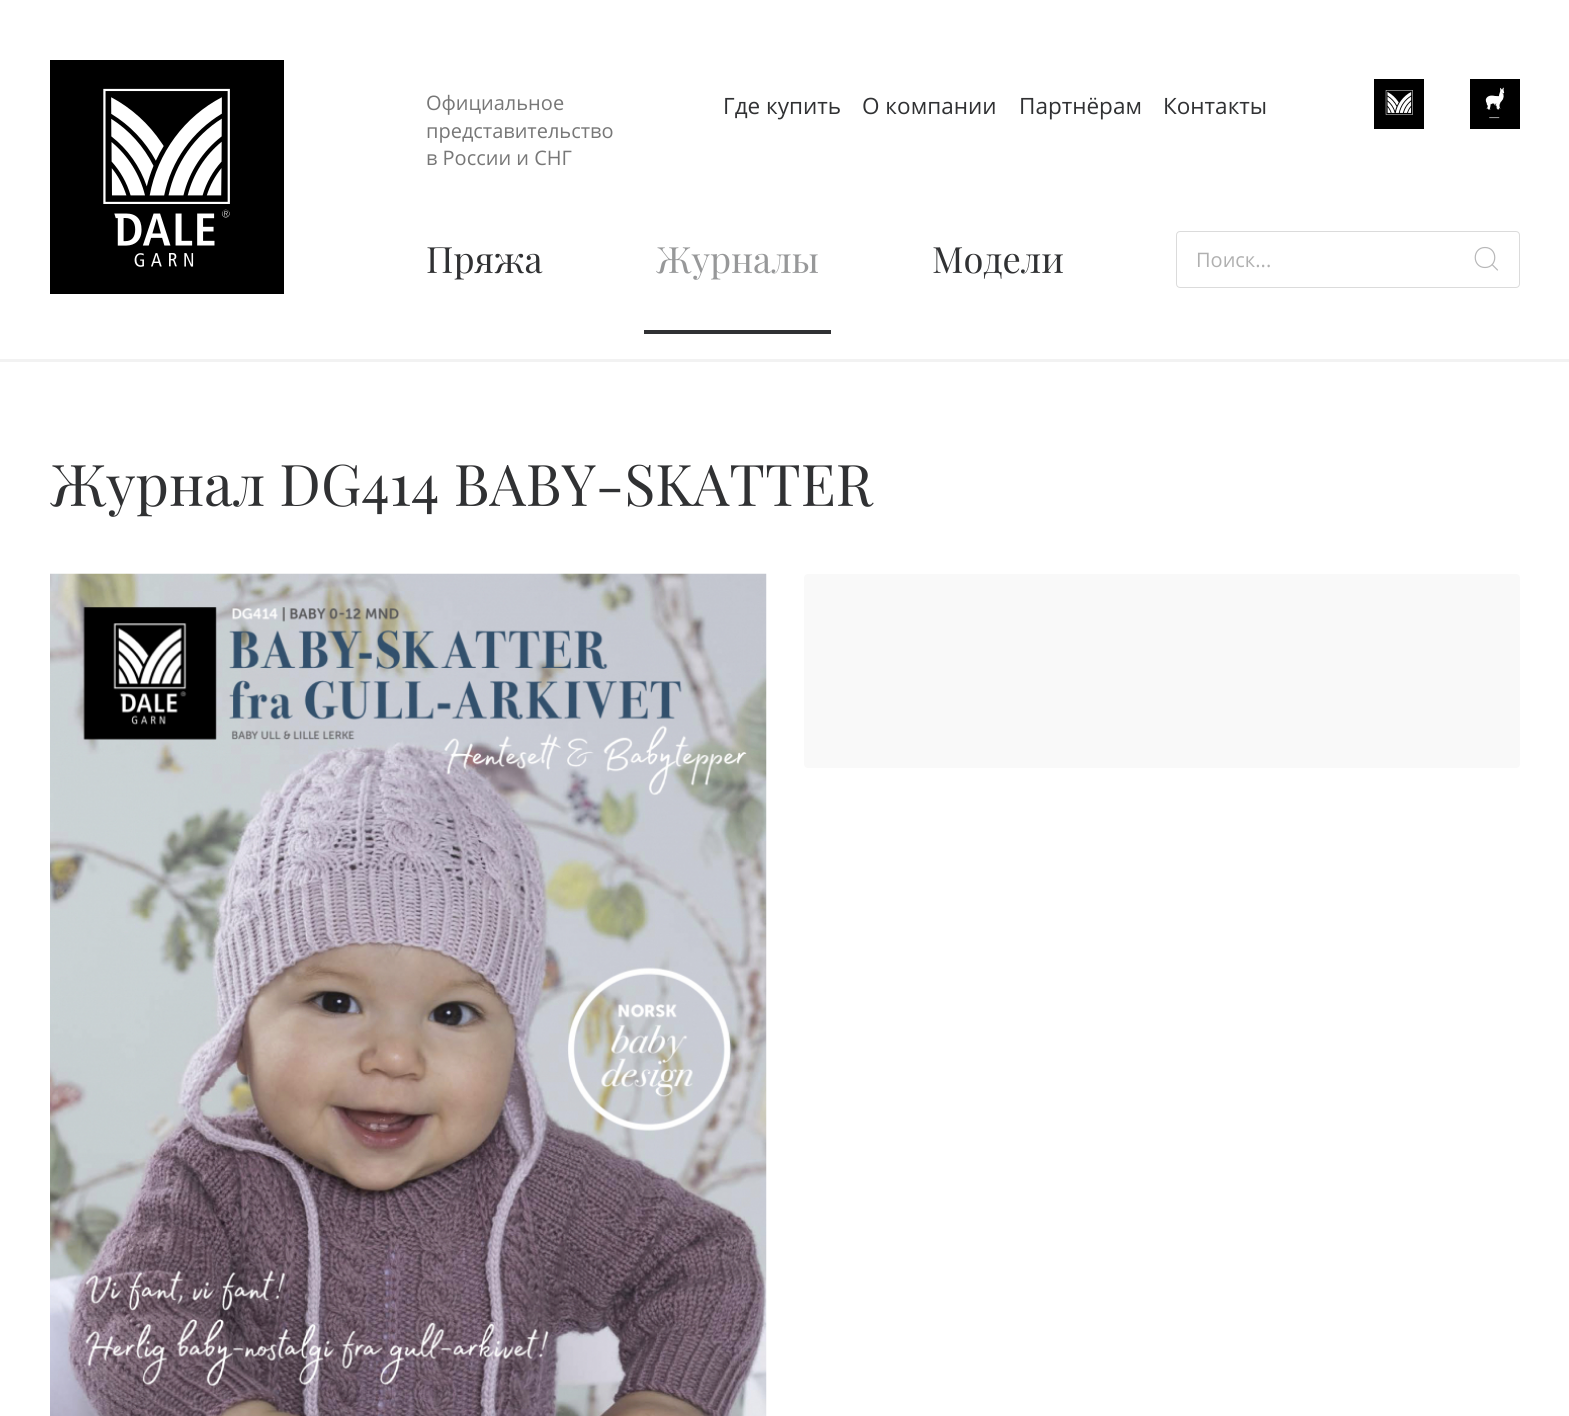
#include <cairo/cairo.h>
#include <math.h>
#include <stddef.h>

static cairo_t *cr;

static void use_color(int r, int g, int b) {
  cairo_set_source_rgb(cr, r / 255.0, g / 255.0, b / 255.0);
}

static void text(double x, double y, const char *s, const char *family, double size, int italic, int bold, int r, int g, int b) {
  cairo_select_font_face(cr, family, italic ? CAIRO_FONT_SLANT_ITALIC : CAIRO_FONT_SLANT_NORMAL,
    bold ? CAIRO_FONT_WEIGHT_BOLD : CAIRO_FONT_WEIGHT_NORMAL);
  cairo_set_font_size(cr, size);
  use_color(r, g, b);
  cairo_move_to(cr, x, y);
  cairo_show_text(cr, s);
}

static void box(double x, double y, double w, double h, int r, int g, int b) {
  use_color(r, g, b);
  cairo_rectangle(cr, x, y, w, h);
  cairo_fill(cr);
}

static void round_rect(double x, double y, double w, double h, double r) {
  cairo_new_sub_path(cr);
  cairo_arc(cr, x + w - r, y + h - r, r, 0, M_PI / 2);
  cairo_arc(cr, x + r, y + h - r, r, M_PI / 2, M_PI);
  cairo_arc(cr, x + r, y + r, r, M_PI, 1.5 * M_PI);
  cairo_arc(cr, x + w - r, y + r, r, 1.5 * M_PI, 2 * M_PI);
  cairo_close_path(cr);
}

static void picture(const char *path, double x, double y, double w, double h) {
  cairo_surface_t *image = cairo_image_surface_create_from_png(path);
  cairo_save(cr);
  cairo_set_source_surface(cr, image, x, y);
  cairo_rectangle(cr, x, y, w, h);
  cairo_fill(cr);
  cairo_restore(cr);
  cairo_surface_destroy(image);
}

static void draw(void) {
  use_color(255, 255, 255);
  cairo_paint(cr);
  box(0, 359, 1569, 3, 242, 242, 242);
  picture("img_01.png", 50, 60, 234, 234);
  picture("img_02.png", 1374, 79, 50, 50);
  picture("img_03.png", 1470, 79, 50, 50);
  box(644, 330, 187, 4, 48, 49, 51);
  round_rect(1176.5, 231.5, 343, 56, 3.5);
  use_color(219, 219, 219);
  cairo_set_line_width(cr, 1);
  cairo_stroke(cr);
  cairo_new_path(cr);
  cairo_move_to(cr, 1485, 267.5);
  cairo_curve_to(cr, 1498, 267.5, 1498, 247.5, 1485, 247.5);
  cairo_curve_to(cr, 1472, 247.5, 1472, 267.5, 1485, 267.5);
  cairo_close_path(cr);
  cairo_move_to(cr, 1497.5, 270);
  cairo_line_to(cr, 1492, 264.5);
  use_color(183, 183, 184);
  cairo_set_line_width(cr, 1.2);
  cairo_set_line_cap(cr, CAIRO_LINE_CAP_ROUND);
  cairo_set_line_join(cr, CAIRO_LINE_JOIN_ROUND);
  cairo_stroke(cr);
  picture("img_04.png", 50, 573, 717, 843);
  use_color(249, 249, 249);
  round_rect(804, 574, 716, 194, 4);
  cairo_fill(cr);
  text(426, 110, "Официальное", "Open Sans", 20, 0, 0, 119, 119, 119);
  text(426, 138, "представительство", "Open Sans", 20, 0, 0, 119, 119, 119);
  text(426, 165, "в России и СНГ", "Open Sans", 20, 0, 0, 119, 119, 119);
  text(723, 114, "Где купить", "Open Sans", 22.5, 0, 0, 48, 49, 51);
  text(862, 114, "О компании", "Open Sans", 22.5, 0, 0, 48, 49, 51);
  text(1019, 114, "Партнёрам", "Open Sans", 22.5, 0, 0, 48, 49, 51);
  text(1163, 114, "Контакты", "Open Sans", 22.5, 0, 0, 48, 49, 51);
  text(426, 273, "Пряжа", "Playfair Display", 36.25, 0, 0, 48, 49, 51);
  text(656, 273, "Журналы", "Playfair Display", 36.25, 0, 0, 151, 152, 153);
  text(932, 273, "Модели", "Playfair Display", 36.25, 0, 0, 48, 49, 51);
  text(1196, 267, "Поиск...", "Open Sans", 20, 0, 0, 176, 176, 176);
  text(50, 506, "Журнал DG414 BABY-SKATTER", "Playfair Display", 57.5, 0, 0, 48, 49, 51);
}

int main(void) {
  cairo_surface_t *surface = cairo_image_surface_create(CAIRO_FORMAT_RGB24, 1569, 1416);
  cr = cairo_create(surface);
  cairo_font_options_t *options = cairo_font_options_create();
  cairo_font_options_set_hint_metrics(options, CAIRO_HINT_METRICS_OFF);
  cairo_font_options_set_hint_style(options, CAIRO_HINT_STYLE_NONE);
  cairo_set_font_options(cr, options);
  cairo_set_miter_limit(cr, 4);
  draw();
  cairo_surface_write_to_png(surface, "out.png");
  cairo_font_options_destroy(options);
  cairo_destroy(cr);
  cairo_surface_destroy(surface);
  return 0;
}
